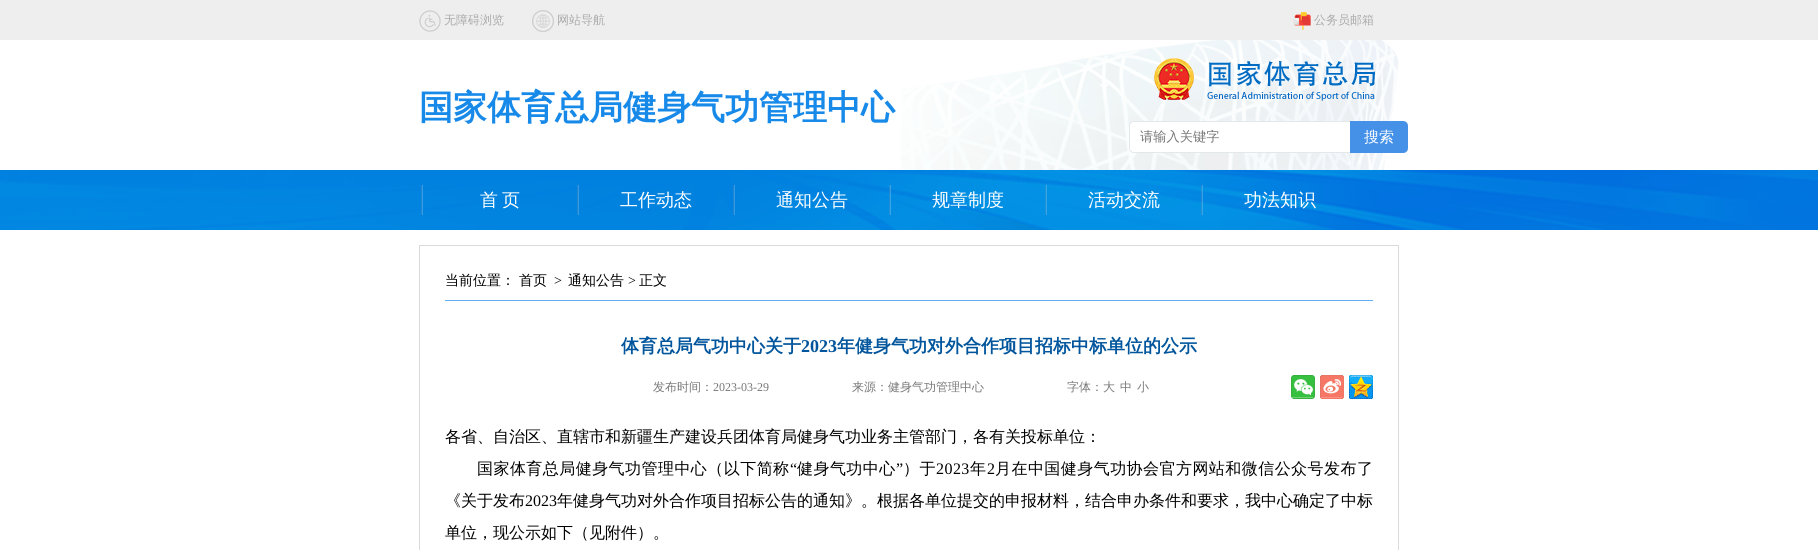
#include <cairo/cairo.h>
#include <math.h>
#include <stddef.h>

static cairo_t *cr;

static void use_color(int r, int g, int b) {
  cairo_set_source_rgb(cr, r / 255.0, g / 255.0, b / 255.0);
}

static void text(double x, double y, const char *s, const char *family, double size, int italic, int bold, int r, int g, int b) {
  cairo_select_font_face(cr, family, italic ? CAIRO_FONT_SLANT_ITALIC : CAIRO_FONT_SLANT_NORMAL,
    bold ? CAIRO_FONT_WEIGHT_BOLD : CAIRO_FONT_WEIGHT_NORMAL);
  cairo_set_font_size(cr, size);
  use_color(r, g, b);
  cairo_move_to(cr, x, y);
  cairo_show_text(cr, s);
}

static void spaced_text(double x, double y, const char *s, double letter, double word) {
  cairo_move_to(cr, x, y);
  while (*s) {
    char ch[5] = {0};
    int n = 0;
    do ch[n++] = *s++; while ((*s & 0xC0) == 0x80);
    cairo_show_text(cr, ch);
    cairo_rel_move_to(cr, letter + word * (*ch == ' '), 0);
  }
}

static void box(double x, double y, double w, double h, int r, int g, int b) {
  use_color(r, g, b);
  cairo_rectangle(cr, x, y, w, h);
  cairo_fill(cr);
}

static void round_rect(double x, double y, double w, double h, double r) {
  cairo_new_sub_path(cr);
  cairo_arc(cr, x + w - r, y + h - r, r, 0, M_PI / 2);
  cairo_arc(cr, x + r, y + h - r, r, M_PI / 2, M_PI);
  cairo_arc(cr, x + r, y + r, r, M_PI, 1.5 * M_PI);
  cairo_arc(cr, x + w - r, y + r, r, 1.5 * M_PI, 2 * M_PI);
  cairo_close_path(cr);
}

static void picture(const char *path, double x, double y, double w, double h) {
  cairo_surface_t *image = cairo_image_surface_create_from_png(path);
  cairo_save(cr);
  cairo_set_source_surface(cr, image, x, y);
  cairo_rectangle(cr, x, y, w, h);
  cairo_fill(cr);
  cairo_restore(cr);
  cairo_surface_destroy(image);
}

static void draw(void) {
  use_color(255, 255, 255);
  cairo_paint(cr);
  box(0, 0, 1818, 40, 238, 238, 238);
  picture("img_01.png", 419, 10, 22, 22);
  picture("img_02.png", 532, 10, 22, 22);
  picture("img_03.png", 1293, 12, 18, 18);
  picture("img_04.png", 901, 40, 498, 130);
  picture("img_05.png", 1154, 58, 222, 43);
  use_color(255, 255, 255);
  round_rect(1129.5, 121.5, 252, 31, 4.5);
  cairo_fill_preserve(cr);
  use_color(227, 232, 235);
  cairo_set_line_width(cr, 1);
  cairo_stroke(cr);
  use_color(70, 145, 232);
  cairo_new_path(cr);
  cairo_move_to(cr, 1350, 121);
  cairo_line_to(cr, 1403, 121);
  cairo_curve_to(cr, 1406, 121, 1408, 123, 1408, 126);
  cairo_line_to(cr, 1408, 148);
  cairo_curve_to(cr, 1408, 151, 1406, 153, 1403, 153);
  cairo_line_to(cr, 1350, 153);
  cairo_close_path(cr);
  cairo_fill(cr);
  picture("img_06.png", 0, 170, 1818, 60);
  picture("img_07.png", 421, 185, 2, 30);
  picture("img_08.png", 577, 185, 2, 30);
  picture("img_09.png", 733, 185, 2, 30);
  picture("img_10.png", 889, 185, 2, 30);
  picture("img_11.png", 1045, 185, 2, 30);
  picture("img_12.png", 1201, 185, 2, 30);
  cairo_rectangle(cr, 419.5, 245.5, 979, 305);
  use_color(218, 218, 218);
  cairo_stroke(cr);
  box(445, 300, 928, 1, 97, 174, 239);
  picture("img_13.png", 1291, 375, 24, 24);
  picture("img_14.png", 1320, 375, 24, 24);
  picture("img_15.png", 1349, 375, 24, 24);
  text(444, 24, "无障碍浏览", "WenQuanYi Zen Hei Medium", 12, 0, 0, 171, 170, 170);
  text(557, 24, "网站导航", "WenQuanYi Zen Hei Medium", 12, 0, 0, 171, 170, 170);
  text(1314, 24, "公务员邮箱", "WenQuanYi Zen Hei Medium", 12, 0, 0, 171, 170, 170);
  text(419, 119, "国家体育总局健身气功管理中心", "WenQuanYi Zen Hei", 34, 0, 1, 23, 137, 232);
  text(1140, 141, "请输入关键字", "WenQuanYi Zen Hei Medium", 13.25, 0, 0, 119, 119, 119);
  text(1364, 142, "搜索", "WenQuanYi Zen Hei Medium", 15, 0, 0, 255, 255, 255);
  text(480, 206, "首", "WenQuanYi Zen Hei Medium", 18, 0, 0, 255, 255, 255);
  text(502, 206, "页", "WenQuanYi Zen Hei Medium", 18, 0, 0, 255, 255, 255);
  text(620, 206, "工作动态", "WenQuanYi Zen Hei Medium", 18, 0, 0, 255, 255, 255);
  text(776, 206, "通知公告", "WenQuanYi Zen Hei Medium", 18, 0, 0, 255, 255, 255);
  text(932, 206, "规章制度", "WenQuanYi Zen Hei Medium", 18, 0, 0, 255, 255, 255);
  text(1088, 206, "活动交流", "WenQuanYi Zen Hei Medium", 18, 0, 0, 255, 255, 255);
  text(1244, 206, "功法知识", "WenQuanYi Zen Hei Medium", 18, 0, 0, 255, 255, 255);
  text(445, 285, "当前位置：", "WenQuanYi Zen Hei Medium", 14, 0, 0, 0, 0, 0);
  text(519, 285, "首页", "WenQuanYi Zen Hei Medium", 14, 0, 0, 0, 0, 0);
  text(554, 285, ">", "Liberation Serif", 14, 0, 0, 0, 0, 0);
  text(568, 285, "通知公告", "WenQuanYi Zen Hei Medium", 14, 0, 0, 0, 0, 0);
  text(628, 285, ">", "Liberation Serif", 14, 0, 0, 0, 0, 0);
  text(639, 285, "正文", "WenQuanYi Zen Hei Medium", 14, 0, 0, 0, 0, 0);
  text(621, 352, "体育总局气功中心关于", "WenQuanYi Zen Hei", 18, 0, 1, 0, 85, 156);
  text(801, 352, "2023", "Liberation Serif", 18, 0, 1, 0, 85, 156);
  text(837, 352, "年健身气功对外合作项目招标中标单位的公示", "WenQuanYi Zen Hei", 18, 0, 1, 0, 85, 156);
  text(653, 391, "发布时间：", "WenQuanYi Zen Hei Medium", 12, 0, 0, 119, 119, 119);
  text(713, 391, "2023-03-29", "Liberation Serif", 12, 0, 0, 119, 119, 119);
  text(852, 391, "来源：健身气功管理中心", "WenQuanYi Zen Hei Medium", 12, 0, 0, 119, 119, 119);
  text(1067, 391, "字体：大", "WenQuanYi Zen Hei Medium", 12, 0, 0, 119, 119, 119);
  text(1120, 391, "中", "WenQuanYi Zen Hei Medium", 12, 0, 0, 119, 119, 119);
  text(1137, 391, "小", "WenQuanYi Zen Hei Medium", 12, 0, 0, 119, 119, 119);
  text(445, 442, "各省、自治区、直辖市和新疆生产建设兵团体育局健身气功业务主管部门，各有关投标单位：", "WenQuanYi Zen Hei Medium", 16, 0, 0, 0, 0, 0);
  spaced_text(477, 474, "国家体育总局健身气功管理中心（以下简称", 0.45, 0);
  cairo_select_font_face(cr, "Liberation Serif", CAIRO_FONT_SLANT_NORMAL, CAIRO_FONT_WEIGHT_NORMAL);
  spaced_text(790, 474, "“", 0.45, 0);
  cairo_select_font_face(cr, "WenQuanYi Zen Hei Medium", CAIRO_FONT_SLANT_NORMAL, CAIRO_FONT_WEIGHT_NORMAL);
  spaced_text(797, 474, "健身气功中心", 0.45, 0);
  cairo_select_font_face(cr, "Liberation Serif", CAIRO_FONT_SLANT_NORMAL, CAIRO_FONT_WEIGHT_NORMAL);
  spaced_text(896, 474, "”", 0.45, 0);
  cairo_select_font_face(cr, "WenQuanYi Zen Hei Medium", CAIRO_FONT_SLANT_NORMAL, CAIRO_FONT_WEIGHT_NORMAL);
  spaced_text(903, 474, "）于", 0.45, 0);
  cairo_select_font_face(cr, "Liberation Serif", CAIRO_FONT_SLANT_NORMAL, CAIRO_FONT_WEIGHT_NORMAL);
  spaced_text(936, 474, "2023", 0.45, 0);
  cairo_select_font_face(cr, "WenQuanYi Zen Hei Medium", CAIRO_FONT_SLANT_NORMAL, CAIRO_FONT_WEIGHT_NORMAL);
  spaced_text(970, 474, "年", 0.45, 0);
  cairo_select_font_face(cr, "Liberation Serif", CAIRO_FONT_SLANT_NORMAL, CAIRO_FONT_WEIGHT_NORMAL);
  spaced_text(987, 474, "2", 0.45, 0);
  cairo_select_font_face(cr, "WenQuanYi Zen Hei Medium", CAIRO_FONT_SLANT_NORMAL, CAIRO_FONT_WEIGHT_NORMAL);
  spaced_text(995, 474, "月在中国健身气功协会官方网站和微信公众号发布了", 0.45, 0);
  text(445, 506, "《关于发布", "WenQuanYi Zen Hei Medium", 16, 0, 0, 0, 0, 0);
  text(525, 506, "2023", "Liberation Serif", 16, 0, 0, 0, 0, 0);
  text(557, 506, "年健身气功对外合作项目招标公告的通知》。根据各单位提交的申报材料，结合申办条件和要求，我中心确定了中标", "WenQuanYi Zen Hei Medium", 16, 0, 0, 0, 0, 0);
  text(445, 538, "单位，现公示如下（见附件）。", "WenQuanYi Zen Hei Medium", 16, 0, 0, 0, 0, 0);
}

int main(void) {
  cairo_surface_t *surface = cairo_image_surface_create(CAIRO_FORMAT_RGB24, 1818, 550);
  cr = cairo_create(surface);
  cairo_font_options_t *options = cairo_font_options_create();
  cairo_font_options_set_hint_metrics(options, CAIRO_HINT_METRICS_OFF);
  cairo_font_options_set_hint_style(options, CAIRO_HINT_STYLE_NONE);
  cairo_set_font_options(cr, options);
  cairo_set_miter_limit(cr, 4);
  draw();
  cairo_surface_write_to_png(surface, "out.png");
  cairo_font_options_destroy(options);
  cairo_destroy(cr);
  cairo_surface_destroy(surface);
  return 0;
}
